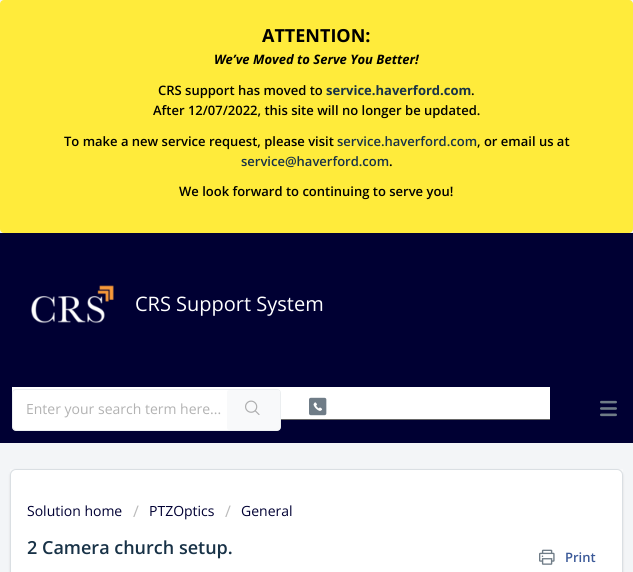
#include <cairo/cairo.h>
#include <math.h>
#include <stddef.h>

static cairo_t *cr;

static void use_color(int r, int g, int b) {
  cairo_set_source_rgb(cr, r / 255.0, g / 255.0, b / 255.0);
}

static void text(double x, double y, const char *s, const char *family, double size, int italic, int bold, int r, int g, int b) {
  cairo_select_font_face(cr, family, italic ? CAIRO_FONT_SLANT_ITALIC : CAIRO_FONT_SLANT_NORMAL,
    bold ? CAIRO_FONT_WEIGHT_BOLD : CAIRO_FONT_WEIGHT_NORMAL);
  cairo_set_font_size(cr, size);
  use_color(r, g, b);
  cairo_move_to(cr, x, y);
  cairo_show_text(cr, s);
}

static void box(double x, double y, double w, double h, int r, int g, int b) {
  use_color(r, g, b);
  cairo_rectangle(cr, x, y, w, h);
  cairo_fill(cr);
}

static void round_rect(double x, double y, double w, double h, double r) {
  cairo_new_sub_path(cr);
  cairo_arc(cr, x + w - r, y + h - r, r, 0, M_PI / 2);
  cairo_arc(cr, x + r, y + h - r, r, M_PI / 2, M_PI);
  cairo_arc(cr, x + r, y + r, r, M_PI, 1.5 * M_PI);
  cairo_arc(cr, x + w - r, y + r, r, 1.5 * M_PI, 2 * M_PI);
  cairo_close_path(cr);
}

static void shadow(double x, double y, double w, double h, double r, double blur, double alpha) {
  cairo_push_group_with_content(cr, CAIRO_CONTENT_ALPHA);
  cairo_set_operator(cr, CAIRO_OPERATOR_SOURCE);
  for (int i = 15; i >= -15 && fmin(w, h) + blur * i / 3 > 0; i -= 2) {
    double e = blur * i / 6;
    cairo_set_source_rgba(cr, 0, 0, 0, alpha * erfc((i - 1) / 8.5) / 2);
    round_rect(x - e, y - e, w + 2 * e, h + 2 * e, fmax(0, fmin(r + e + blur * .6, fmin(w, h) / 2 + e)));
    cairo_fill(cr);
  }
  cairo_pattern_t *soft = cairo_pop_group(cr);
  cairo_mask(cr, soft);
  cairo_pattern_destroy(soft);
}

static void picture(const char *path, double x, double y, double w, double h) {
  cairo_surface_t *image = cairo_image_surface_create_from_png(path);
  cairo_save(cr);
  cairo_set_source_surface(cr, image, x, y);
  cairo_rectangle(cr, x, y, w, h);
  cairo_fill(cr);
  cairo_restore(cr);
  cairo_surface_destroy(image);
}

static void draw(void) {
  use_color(243, 245, 247);
  cairo_paint(cr);
  use_color(255, 235, 59);
  round_rect(0, 0, 633, 233, 4);
  cairo_fill(cr);
  box(0, 233, 633, 210, 0, 0, 51);
  picture("img_01.png", 31, 285, 83, 39);
  box(12, 387, 538, 32, 255, 255, 255);
  box(281, 419, 269, 1, 103, 103, 103);
  use_color(255, 255, 255);
  round_rect(12.5, 389.5, 268, 41, 3.5);
  cairo_fill_preserve(cr);
  use_color(235, 238, 240);
  cairo_set_line_width(cr, 1);
  cairo_stroke(cr);
  use_color(248, 249, 250);
  round_rect(227, 390, 53, 40, 2);
  cairo_fill(cr);
  picture("img_02.png", 245, 400, 15, 15);
  picture("img_03.png", 309, 397, 18, 19);
  picture("img_04.png", 600, 400, 17, 17);
  box(10, 469, 613, 6, 248, 249, 250);
  use_color(63, 63, 68);
  shadow(10, 470, 613, 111, 6, 1, 0.15);
  use_color(255, 255, 255);
  round_rect(10.5, 469.5, 612, 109, 5.5);
  cairo_fill_preserve(cr);
  use_color(218, 223, 227);
  cairo_stroke(cr);
  picture("img_05.png", 539, 549, 16, 16);
  text(262, 42, "ATTENTION:", "Open Sans", 18, 0, 1, 0, 0, 0);
  text(214, 64, "We’ve Moved to Serve You Better!", "Open Sans", 13, 1, 1, 0, 0, 0);
  text(158, 95, "CRS support has moved to", "Open Sans SemiBold", 13, 0, 0, 0, 0, 0);
  text(326, 95, "service.haverford.com", "Open Sans", 13, 0, 1, 24, 50, 71);
  text(471, 95, ".", "Open Sans SemiBold", 13, 0, 0, 0, 0, 0);
  text(153, 115, "After 12/07/2022, this site will no longer be updated.", "Open Sans SemiBold", 13, 0, 0, 0, 0, 0);
  text(64, 146, "To make a new service request, please visit", "Open Sans SemiBold", 13, 0, 0, 0, 0, 0);
  text(337, 146, "service.haverford.com", "Open Sans SemiBold", 13, 0, 0, 24, 50, 71);
  text(477, 146, ", or email us at", "Open Sans SemiBold", 13, 0, 0, 0, 0, 0);
  text(241, 166, "service@haverford.com", "Open Sans SemiBold", 13, 0, 0, 24, 50, 71);
  text(389, 166, ".", "Open Sans SemiBold", 13, 0, 0, 0, 0, 0);
  text(179, 196, "We look forward to continuing to serve you!", "Open Sans SemiBold", 13, 0, 0, 0, 0, 0);
  text(135, 311, "CRS Support System", "Open Sans", 20, 0, 0, 255, 255, 255);
  text(26, 414, "Enter your search term here...", "Open Sans", 14, 0, 0, 178, 178, 178);
  text(27, 516, "Solution home", "Open Sans", 14, 0, 0, 0, 0, 51);
  text(133, 517, "/", "Open Sans", 16, 0, 0, 187, 187, 187);
  text(149, 516, "PTZOptics", "Open Sans", 14, 0, 0, 0, 0, 51);
  text(225, 517, "/", "Open Sans", 16, 0, 0, 187, 187, 187);
  text(241, 516, "General", "Open Sans", 14, 0, 0, 0, 0, 51);
  text(27, 554, "2 Camera church setup.", "Open Sans SemiBold", 18, 0, 0, 24, 50, 71);
  text(565, 562, "Print", "Open Sans SemiBold", 13, 0, 0, 59, 89, 152);
}

int main(void) {
  cairo_surface_t *surface = cairo_image_surface_create(CAIRO_FORMAT_RGB24, 633, 572);
  cr = cairo_create(surface);
  cairo_font_options_t *options = cairo_font_options_create();
  cairo_font_options_set_hint_metrics(options, CAIRO_HINT_METRICS_OFF);
  cairo_font_options_set_hint_style(options, CAIRO_HINT_STYLE_NONE);
  cairo_set_font_options(cr, options);
  cairo_set_miter_limit(cr, 4);
  draw();
  cairo_surface_write_to_png(surface, "out.png");
  cairo_font_options_destroy(options);
  cairo_destroy(cr);
  cairo_surface_destroy(surface);
  return 0;
}
